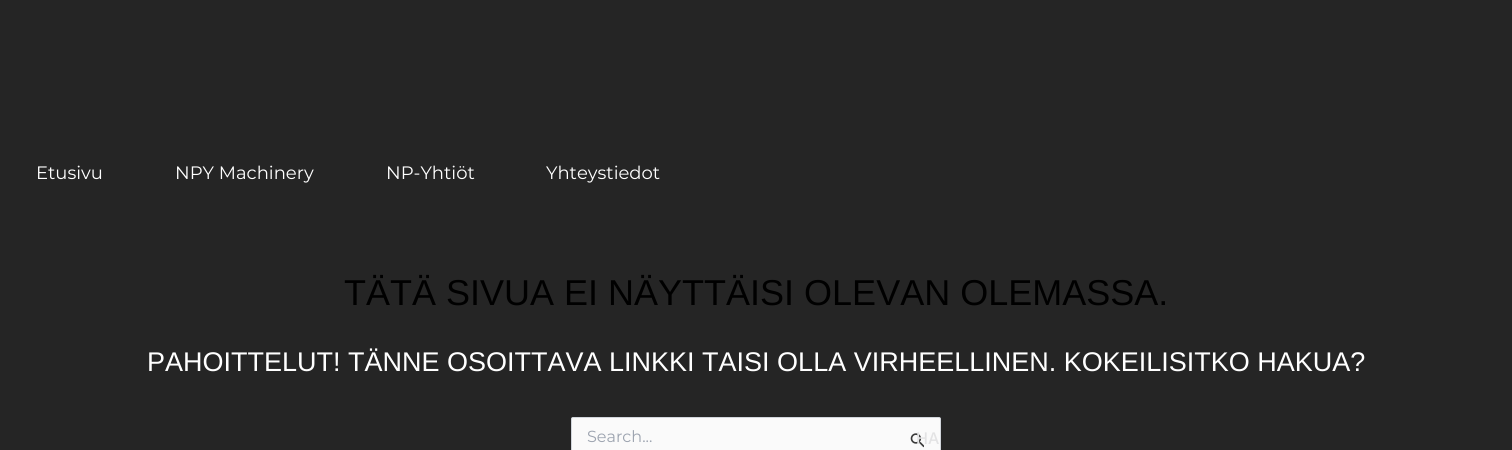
#include <cairo/cairo.h>
#include <math.h>
#include <stddef.h>

static cairo_t *cr;

static void use_color(int r, int g, int b) {
  cairo_set_source_rgb(cr, r / 255.0, g / 255.0, b / 255.0);
}

static void text(double x, double y, const char *s, const char *family, double size, int italic, int bold, int r, int g, int b) {
  cairo_select_font_face(cr, family, italic ? CAIRO_FONT_SLANT_ITALIC : CAIRO_FONT_SLANT_NORMAL,
    bold ? CAIRO_FONT_WEIGHT_BOLD : CAIRO_FONT_WEIGHT_NORMAL);
  cairo_set_font_size(cr, size);
  use_color(r, g, b);
  cairo_move_to(cr, x, y);
  cairo_show_text(cr, s);
}

static void round_rect(double x, double y, double w, double h, double r) {
  cairo_new_sub_path(cr);
  cairo_arc(cr, x + w - r, y + h - r, r, 0, M_PI / 2);
  cairo_arc(cr, x + r, y + h - r, r, M_PI / 2, M_PI);
  cairo_arc(cr, x + r, y + r, r, M_PI, 1.5 * M_PI);
  cairo_arc(cr, x + w - r, y + r, r, 1.5 * M_PI, 2 * M_PI);
  cairo_close_path(cr);
}

static void picture(const char *path, double x, double y, double w, double h) {
  cairo_surface_t *image = cairo_image_surface_create_from_png(path);
  cairo_save(cr);
  cairo_set_source_surface(cr, image, x, y);
  cairo_rectangle(cr, x, y, w, h);
  cairo_fill(cr);
  cairo_restore(cr);
  cairo_surface_destroy(image);
}

static void draw(void) {
  use_color(37, 37, 37);
  cairo_paint(cr);
  use_color(250, 250, 250);
  round_rect(571.5, 417.5, 369, 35, 1.5);
  cairo_fill_preserve(cr);
  use_color(209, 213, 219);
  cairo_set_line_width(cr, 1);
  cairo_stroke(cr);
  picture("img_01.png", 910, 433, 14, 15);
  text(36, 179, "Etusivu", "Montserrat Thin", 18, 0, 0, 255, 255, 255);
  text(175, 179, "NPY Machinery", "Montserrat Thin", 18, 0, 0, 255, 255, 255);
  text(386, 179, "NP-Yhtiöt", "Montserrat Thin", 18, 0, 0, 255, 255, 255);
  text(546, 179, "Yhteystiedot", "Montserrat Thin", 18, 0, 0, 255, 255, 255);
  text(344, 305, "TÄTÄ SIVUA EI NÄYTTÄISI OLEVAN OLEMASSA.", "Liberation Sans", 36, 0, 0, 0, 0, 0);
  text(147, 371, "PAHOITTELUT! TÄNNE OSOITTAVA LINKKI TAISI OLLA VIRHEELLINEN. KOKEILISITKO HAKUA?", "Liberation Sans", 27, 0, 0, 255, 255, 255);
  text(587, 442, "Search...", "Montserrat Thin", 16, 0, 0, 156, 163, 175);
  text(916, 444, "HA", "Inter Medium", 16, 0, 0, 227, 227, 228);
}

int main(void) {
  cairo_surface_t *surface = cairo_image_surface_create(CAIRO_FORMAT_RGB24, 1512, 450);
  cr = cairo_create(surface);
  cairo_font_options_t *options = cairo_font_options_create();
  cairo_font_options_set_hint_metrics(options, CAIRO_HINT_METRICS_OFF);
  cairo_font_options_set_hint_style(options, CAIRO_HINT_STYLE_NONE);
  cairo_set_font_options(cr, options);
  cairo_set_miter_limit(cr, 4);
  draw();
  cairo_surface_write_to_png(surface, "out.png");
  cairo_font_options_destroy(options);
  cairo_destroy(cr);
  cairo_surface_destroy(surface);
  return 0;
}
